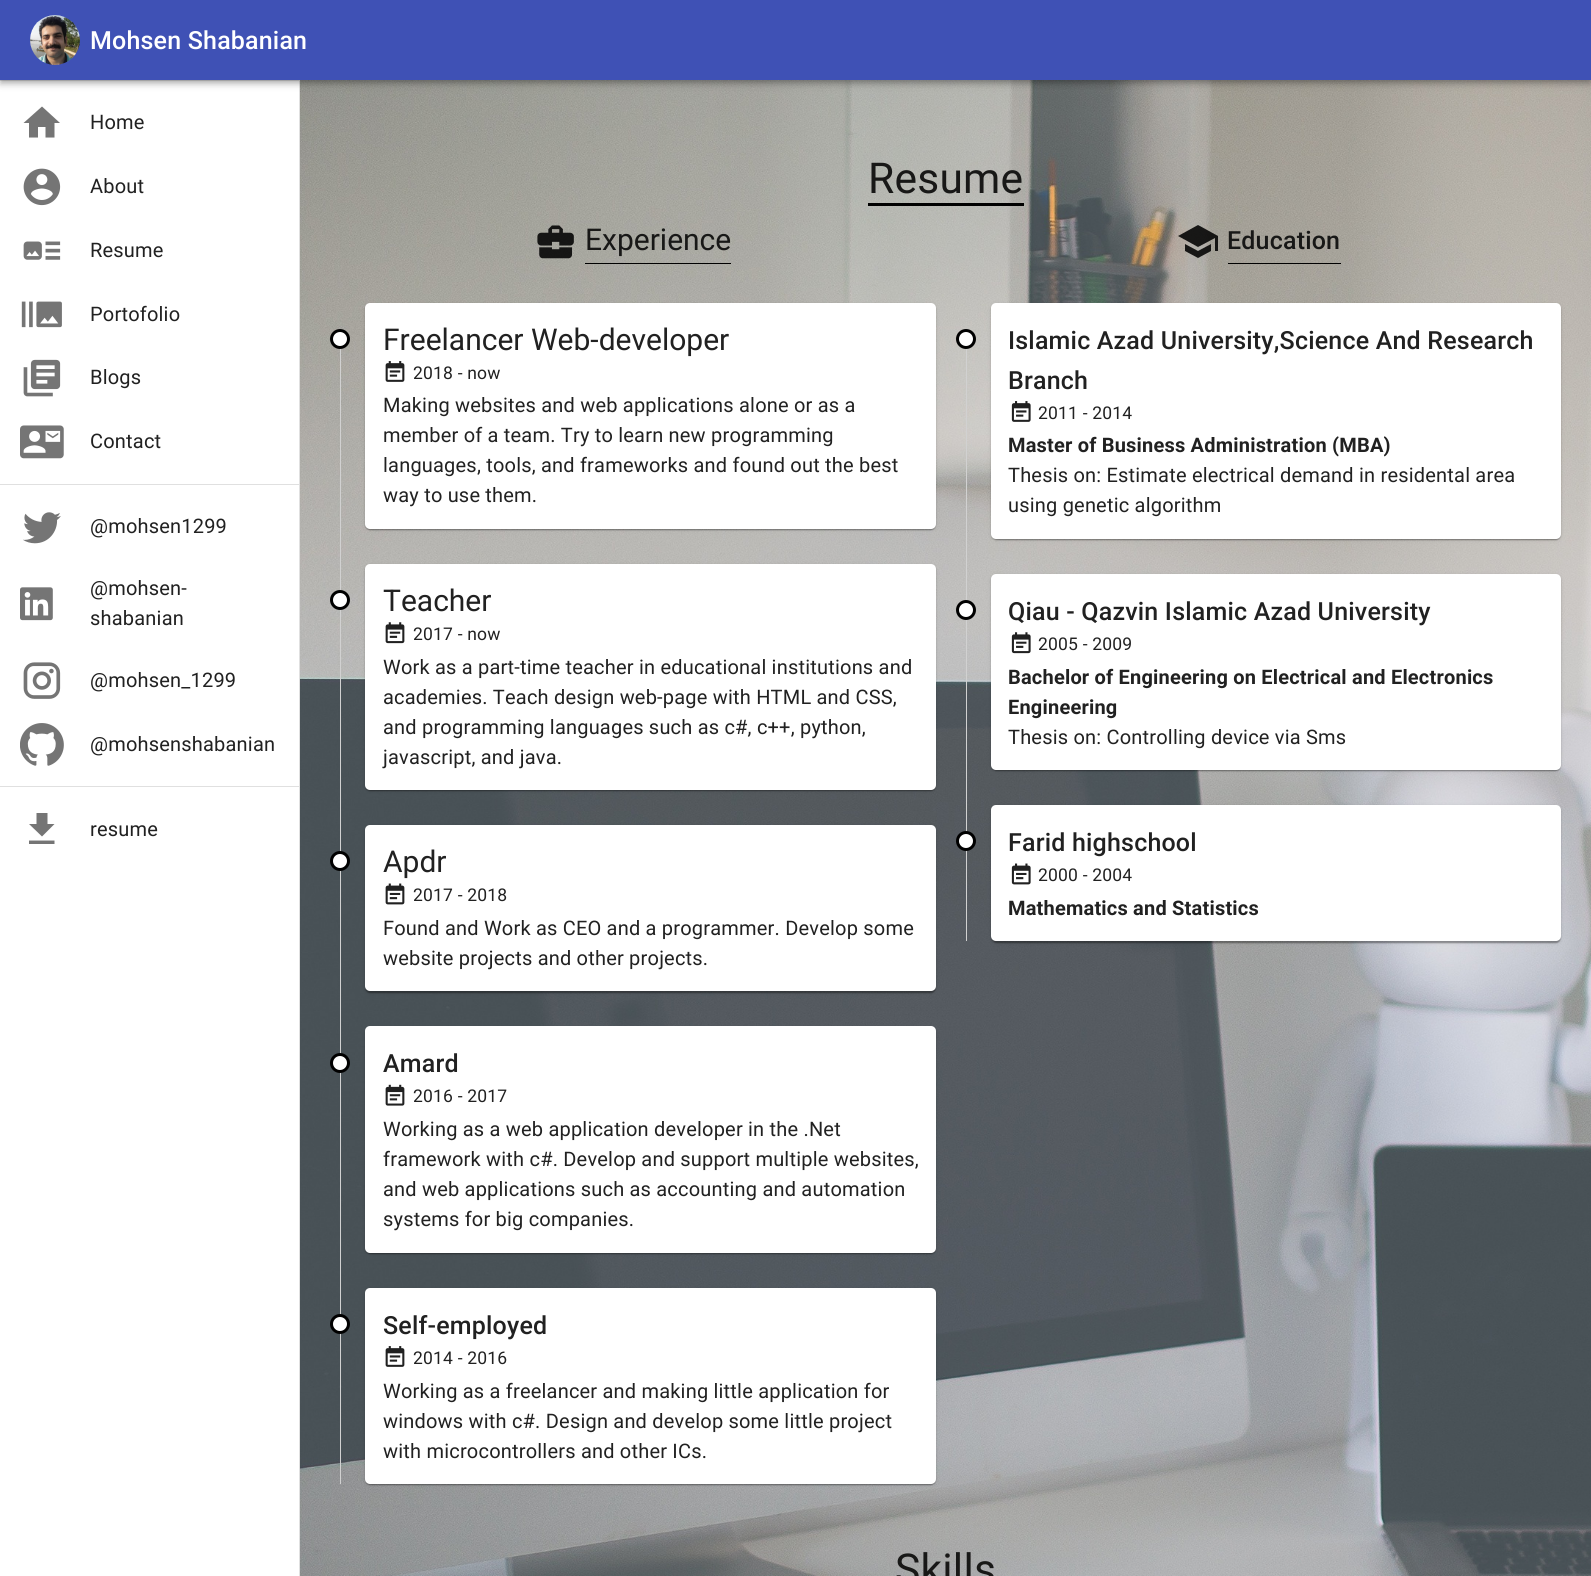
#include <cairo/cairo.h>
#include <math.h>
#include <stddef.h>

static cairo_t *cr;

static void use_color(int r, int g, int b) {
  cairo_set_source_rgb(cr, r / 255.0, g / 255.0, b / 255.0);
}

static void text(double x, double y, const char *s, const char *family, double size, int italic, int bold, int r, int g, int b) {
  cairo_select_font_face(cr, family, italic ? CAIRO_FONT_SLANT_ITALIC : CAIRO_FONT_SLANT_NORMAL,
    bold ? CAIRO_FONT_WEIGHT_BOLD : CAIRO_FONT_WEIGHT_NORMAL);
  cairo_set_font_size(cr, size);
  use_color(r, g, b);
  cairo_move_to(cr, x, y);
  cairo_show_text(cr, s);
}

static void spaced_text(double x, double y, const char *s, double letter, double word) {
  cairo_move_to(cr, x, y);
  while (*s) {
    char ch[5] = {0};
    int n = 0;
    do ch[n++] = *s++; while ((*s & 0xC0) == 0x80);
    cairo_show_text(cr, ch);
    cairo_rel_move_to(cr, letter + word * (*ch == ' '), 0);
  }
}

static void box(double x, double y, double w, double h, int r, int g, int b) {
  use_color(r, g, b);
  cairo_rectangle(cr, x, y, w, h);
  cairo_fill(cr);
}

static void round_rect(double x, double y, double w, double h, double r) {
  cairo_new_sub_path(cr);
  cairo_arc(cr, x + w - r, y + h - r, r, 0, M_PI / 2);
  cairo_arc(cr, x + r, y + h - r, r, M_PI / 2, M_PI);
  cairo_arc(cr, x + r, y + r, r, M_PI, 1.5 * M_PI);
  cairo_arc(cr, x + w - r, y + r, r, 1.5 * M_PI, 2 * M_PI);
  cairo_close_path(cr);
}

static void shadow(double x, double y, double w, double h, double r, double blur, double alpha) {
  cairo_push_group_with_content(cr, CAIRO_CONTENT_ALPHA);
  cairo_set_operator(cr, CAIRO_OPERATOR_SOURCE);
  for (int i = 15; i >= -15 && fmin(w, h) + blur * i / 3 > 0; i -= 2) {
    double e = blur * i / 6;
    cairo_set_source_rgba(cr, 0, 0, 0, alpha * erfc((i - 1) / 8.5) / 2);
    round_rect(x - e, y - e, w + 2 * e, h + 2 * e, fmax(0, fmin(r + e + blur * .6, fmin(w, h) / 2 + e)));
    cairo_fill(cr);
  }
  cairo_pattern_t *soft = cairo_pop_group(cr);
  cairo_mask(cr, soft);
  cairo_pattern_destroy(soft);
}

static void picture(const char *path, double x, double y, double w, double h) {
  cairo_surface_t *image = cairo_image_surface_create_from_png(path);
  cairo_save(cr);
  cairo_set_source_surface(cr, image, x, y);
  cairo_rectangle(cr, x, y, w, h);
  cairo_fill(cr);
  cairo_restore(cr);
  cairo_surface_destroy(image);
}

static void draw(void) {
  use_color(255, 255, 255);
  cairo_paint(cr);
  box(299, 80, 1, 1496, 224, 224, 224);
  box(0, 80, 299, 1, 224, 224, 224);
  picture("img_11.png", 300, 80, 1291, 1496);
  use_color(0, 0, 0);
  shadow(0, 1, 1591, 80, 0, 6, 0.12);
  shadow(0, 5, 1591, 80, 0, 3, 0.14);
  shadow(1, 4, 1589, 77, 0, 2.5, 0.2);
  box(0, 0, 1591, 80, 63, 81, 181);
  picture("img_01.png", 30, 15, 50, 50);
  use_color(117, 117, 117);
  cairo_new_path(cr);
  cairo_move_to(cr, 38, 137.5);
  cairo_line_to(cr, 38, 127);
  cairo_line_to(cr, 45.5, 127);
  cairo_line_to(cr, 45.5, 137.5);
  cairo_line_to(cr, 54.5, 137.5);
  cairo_line_to(cr, 54.5, 123);
  cairo_line_to(cr, 60, 123);
  cairo_line_to(cr, 42, 106.5);
  cairo_line_to(cr, 23.5, 123);
  cairo_line_to(cr, 29, 123);
  cairo_line_to(cr, 29, 137.5);
  cairo_close_path(cr);
  cairo_fill(cr);
  picture("img_02.png", 23, 168, 38, 38);
  picture("img_03.png", 23, 241, 38, 19);
  picture("img_04.png", 21, 301, 41, 27);
  picture("img_05.png", 23, 359, 38, 38);
  picture("img_06.png", 20, 425, 44, 34);
  box(0, 484, 299, 1, 224, 224, 224);
  picture("img_07.png", 23, 512, 38, 32);
  picture("img_08.png", 20, 587, 33, 34);
  picture("img_09.png", 23, 662, 38, 37);
  picture("img_10.png", 20, 723, 44, 43);
  box(0, 786, 299, 1, 224, 224, 224);
  use_color(117, 117, 117);
  cairo_new_path(cr);
  cairo_move_to(cr, 54.5, 824);
  cairo_line_to(cr, 47.5, 824);
  cairo_line_to(cr, 47.5, 813);
  cairo_line_to(cr, 36.5, 813);
  cairo_line_to(cr, 36.5, 824);
  cairo_line_to(cr, 29, 824);
  cairo_line_to(cr, 42, 836.5);
  cairo_close_path(cr);
  cairo_move_to(cr, 29, 840.5);
  cairo_line_to(cr, 29, 844);
  cairo_line_to(cr, 54.5, 844);
  cairo_line_to(cr, 54.5, 840.5);
  cairo_close_path(cr);
  cairo_fill(cr);
  box(868, 203, 156, 3, 0, 0, 0);
  picture("img_12.png", 537, 225, 37, 34);
  box(585, 263, 146, 1, 0, 0, 0);
  box(340, 348, 1, 1136, 209, 209, 209);
  use_color(255, 255, 255);
  cairo_arc(cr, 340, 339, 8.5, 0, 2 * M_PI);
  cairo_fill_preserve(cr);
  use_color(0, 0, 0);
  cairo_set_line_width(cr, 3);
  cairo_stroke(cr);
  use_color(0, 0, 0);
  shadow(365, 304, 571, 226, 5, 2, 0.12);
  shadow(365, 304, 571, 226, 5, 0.5, 0.14);
  shadow(366, 306, 569, 224, 4, 0.5, 0.2);
  use_color(255, 255, 255);
  round_rect(365, 303, 571, 226, 5);
  cairo_fill(cr);
  picture("img_13.png", 385, 361, 20, 21);
  cairo_arc(cr, 340, 600, 8.5, 0, 2 * M_PI);
  cairo_fill_preserve(cr);
  use_color(0, 0, 0);
  cairo_stroke(cr);
  use_color(0, 0, 0);
  shadow(365, 565, 571, 226, 5, 2, 0.12);
  shadow(365, 565, 571, 226, 5, 0.5, 0.14);
  shadow(366, 568, 569, 223, 4, 0.5, 0.2);
  use_color(255, 255, 255);
  round_rect(365, 564, 571, 226, 5);
  cairo_fill(cr);
  picture("img_14.png", 385, 622, 20, 22);
  cairo_arc(cr, 340, 861, 8.5, 0, 2 * M_PI);
  cairo_fill_preserve(cr);
  use_color(0, 0, 0);
  cairo_stroke(cr);
  use_color(0, 0, 0);
  shadow(365, 826, 571, 167, 5, 2, 0.12);
  shadow(365, 826, 571, 167, 5, 0.5, 0.14);
  shadow(366, 829, 569, 164, 4, 0.5, 0.2);
  use_color(255, 255, 255);
  round_rect(365, 825, 571, 166, 5);
  cairo_fill(cr);
  picture("img_15.png", 385, 883, 20, 22);
  cairo_arc(cr, 340, 1063, 8.5, 0, 2 * M_PI);
  cairo_fill_preserve(cr);
  use_color(0, 0, 0);
  cairo_stroke(cr);
  use_color(0, 0, 0);
  shadow(365, 1028, 571, 226, 5, 2, 0.12);
  shadow(365, 1028, 571, 226, 5, 0.5, 0.14);
  shadow(366, 1030, 569, 224, 4, 0.5, 0.2);
  use_color(255, 255, 255);
  round_rect(365, 1026, 571, 227, 5);
  cairo_fill(cr);
  picture("img_16.png", 385, 1084, 20, 22);
  cairo_arc(cr, 340, 1324, 8.5, 0, 2 * M_PI);
  cairo_fill_preserve(cr);
  use_color(0, 0, 0);
  cairo_stroke(cr);
  use_color(0, 0, 0);
  shadow(365, 1289, 571, 196, 5, 2, 0.12);
  shadow(365, 1289, 571, 196, 5, 0.5, 0.14);
  shadow(366, 1291, 569, 194, 4, 0.5, 0.2);
  use_color(255, 255, 255);
  round_rect(365, 1288, 571, 196, 5);
  cairo_fill(cr);
  picture("img_13.png", 385, 1346, 20, 21);
  cairo_set_source_rgba(cr, 0, 0, 0, 0.87);
  cairo_new_path(cr);
  cairo_move_to(cr, 1185, 244);
  cairo_line_to(cr, 1185, 251);
  cairo_line_to(cr, 1198, 258);
  cairo_line_to(cr, 1211, 251);
  cairo_line_to(cr, 1211, 244);
  cairo_line_to(cr, 1198, 251);
  cairo_close_path(cr);
  cairo_move_to(cr, 1198, 225);
  cairo_line_to(cr, 1178, 236);
  cairo_line_to(cr, 1198, 247);
  cairo_line_to(cr, 1215, 238);
  cairo_line_to(cr, 1215, 251);
  cairo_line_to(cr, 1218, 251);
  cairo_line_to(cr, 1218, 236);
  cairo_close_path(cr);
  cairo_fill(cr);
  box(1228, 263, 113, 1, 0, 0, 0);
  box(966, 348, 1, 593, 209, 209, 209);
  use_color(255, 255, 255);
  cairo_arc(cr, 966, 339, 8.5, 0, 2 * M_PI);
  cairo_fill_preserve(cr);
  use_color(0, 0, 0);
  cairo_stroke(cr);
  use_color(0, 0, 0);
  shadow(991, 304, 570, 236, 5, 2, 0.12);
  shadow(991, 304, 570, 236, 5, 0.5, 0.14);
  shadow(993, 306, 567, 234, 4, 0.5, 0.2);
  use_color(255, 255, 255);
  round_rect(991, 303, 570, 236, 5);
  cairo_fill(cr);
  picture("img_17.png", 1011, 401, 20, 21);
  cairo_arc(cr, 966, 610, 8.5, 0, 2 * M_PI);
  cairo_fill_preserve(cr);
  use_color(0, 0, 0);
  cairo_stroke(cr);
  use_color(0, 0, 0);
  shadow(991, 575, 570, 196, 5, 2, 0.12);
  shadow(991, 575, 570, 196, 5, 0.5, 0.14);
  shadow(993, 578, 567, 193, 4, 0.5, 0.2);
  use_color(255, 255, 255);
  round_rect(991, 574, 570, 196, 5);
  cairo_fill(cr);
  picture("img_18.png", 1011, 632, 20, 22);
  cairo_arc(cr, 966, 841, 8.5, 0, 2 * M_PI);
  cairo_fill_preserve(cr);
  use_color(0, 0, 0);
  cairo_stroke(cr);
  use_color(0, 0, 0);
  shadow(991, 806, 570, 137, 5, 2, 0.12);
  shadow(991, 806, 570, 137, 5, 0.5, 0.14);
  shadow(993, 809, 567, 134, 4, 0.5, 0.2);
  use_color(255, 255, 255);
  round_rect(991, 805, 570, 136, 5);
  cairo_fill(cr);
  picture("img_19.png", 1011, 863, 20, 22);
  cairo_select_font_face(cr, "Roboto Medium", CAIRO_FONT_SLANT_NORMAL, CAIRO_FONT_WEIGHT_NORMAL);
  cairo_set_font_size(cr, 25);
  spaced_text(90, 49, "Mohsen Shabanian", 0.2, 0);
  cairo_select_font_face(cr, "Roboto", CAIRO_FONT_SLANT_NORMAL, CAIRO_FONT_WEIGHT_NORMAL);
  cairo_set_font_size(cr, 20);
  use_color(33, 33, 33);
  spaced_text(90, 129, "Home", 0.2, 0);
  spaced_text(90, 193, "About", 0.2, 0);
  spaced_text(90, 257, "Resume", 0.2, 0);
  spaced_text(90, 321, "Portofolio", 0.2, 0);
  spaced_text(90, 384, "Blogs", 0.2, 0);
  spaced_text(90, 448, "Contact", 0.2, 0);
  spaced_text(90, 533, "@mohsen1299", 0.2, 0);
  spaced_text(90, 595, "@mohsen-", 0.2, 0);
  spaced_text(90, 625, "shabanian", 0.2, 0);
  spaced_text(90, 687, "@mohsen_1299", 0.2, 0);
  spaced_text(90, 751, "@mohsenshabanian", 0.2, 0);
  spaced_text(90, 836, "resume", 0.2, 0);
  cairo_set_font_size(cr, 42.5);
  use_color(24, 24, 23);
  spaced_text(868, 193, "Resume", 0.25, 0);
  text(585, 250, "Experience", "Roboto", 30, 0, 0, 24, 24, 23);
  text(383, 350, "Freelancer Web-developer", "Roboto", 30, 0, 0, 33, 33, 33);
  cairo_set_font_size(cr, 17.5);
  spaced_text(413, 379, "2018 - now", 0.2, 0);
  cairo_set_font_size(cr, 20);
  spaced_text(383, 412, "Making websites and web applications alone or as a", 0.2, 0);
  spaced_text(383, 442, "member of a team. Try to learn new programming", 0.2, 0);
  spaced_text(383, 472, "languages, tools, and frameworks and found out the best", 0.2, 0);
  spaced_text(383, 502, "way to use them.", 0.2, 0);
  text(383, 611, "Teacher", "Roboto", 30, 0, 0, 33, 33, 33);
  cairo_set_font_size(cr, 17.5);
  spaced_text(413, 640, "2017 - now", 0.2, 0);
  cairo_set_font_size(cr, 20);
  spaced_text(383, 674, "Work as a part-time teacher in educational institutions and", 0.2, 0);
  spaced_text(383, 704, "academies. Teach design web-page with HTML and CSS,", 0.2, 0);
  spaced_text(383, 734, "and programming languages such as c#, c++, python,", 0.2, 0);
  spaced_text(383, 764, "javascript, and java.", 0.2, 0);
  text(383, 872, "Apdr", "Roboto", 30, 0, 0, 33, 33, 33);
  cairo_set_font_size(cr, 17.5);
  spaced_text(413, 901, "2017 - 2018", 0.2, 0);
  cairo_set_font_size(cr, 20);
  spaced_text(383, 935, "Found and Work as CEO and a programmer. Develop some", 0.2, 0);
  spaced_text(383, 965, "website projects and other projects.", 0.2, 0);
  cairo_select_font_face(cr, "Roboto Medium", CAIRO_FONT_SLANT_NORMAL, CAIRO_FONT_WEIGHT_NORMAL);
  cairo_set_font_size(cr, 25);
  spaced_text(383, 1072, "Amard", 0.2, 0);
  cairo_select_font_face(cr, "Roboto", CAIRO_FONT_SLANT_NORMAL, CAIRO_FONT_WEIGHT_NORMAL);
  cairo_set_font_size(cr, 17.5);
  spaced_text(413, 1102, "2016 - 2017", 0.2, 0);
  cairo_set_font_size(cr, 20);
  spaced_text(383, 1136, "Working as a web application developer in the .Net", 0.2, 0);
  spaced_text(383, 1166, "framework with c#. Develop and support multiple websites,", 0.2, 0);
  spaced_text(383, 1196, "and web applications such as accounting and automation", 0.2, 0);
  spaced_text(383, 1226, "systems for big companies.", 0.2, 0);
  cairo_select_font_face(cr, "Roboto Medium", CAIRO_FONT_SLANT_NORMAL, CAIRO_FONT_WEIGHT_NORMAL);
  cairo_set_font_size(cr, 25);
  spaced_text(383, 1334, "Self-employed", 0.2, 0);
  cairo_select_font_face(cr, "Roboto", CAIRO_FONT_SLANT_NORMAL, CAIRO_FONT_WEIGHT_NORMAL);
  cairo_set_font_size(cr, 17.5);
  spaced_text(413, 1364, "2014 - 2016", 0.2, 0);
  cairo_set_font_size(cr, 20);
  spaced_text(383, 1398, "Working as a freelancer and making little application for", 0.2, 0);
  spaced_text(383, 1428, "windows with c#. Design and develop some little project", 0.2, 0);
  spaced_text(383, 1458, "with microcontrollers and other ICs.", 0.2, 0);
  cairo_select_font_face(cr, "Roboto Medium", CAIRO_FONT_SLANT_NORMAL, CAIRO_FONT_WEIGHT_NORMAL);
  cairo_set_font_size(cr, 25);
  use_color(24, 24, 23);
  spaced_text(1227, 249, "Education", 0.2, 0);
  use_color(33, 33, 33);
  spaced_text(1008, 349, "Islamic Azad University,Science And Research", 0.2, 0);
  spaced_text(1008, 389, "Branch", 0.2, 0);
  cairo_select_font_face(cr, "Roboto", CAIRO_FONT_SLANT_NORMAL, CAIRO_FONT_WEIGHT_NORMAL);
  cairo_set_font_size(cr, 17.5);
  spaced_text(1038, 419, "2011 - 2014", 0.2, 0);
  cairo_select_font_face(cr, "Roboto", CAIRO_FONT_SLANT_NORMAL, CAIRO_FONT_WEIGHT_BOLD);
  cairo_set_font_size(cr, 20);
  spaced_text(1008, 452, "Master of Business Administration (MBA)", 0.2, 0);
  cairo_select_font_face(cr, "Roboto", CAIRO_FONT_SLANT_NORMAL, CAIRO_FONT_WEIGHT_NORMAL);
  spaced_text(1008, 482, "Thesis on: Estimate electrical demand in residental area", 0.2, 0);
  spaced_text(1008, 512, "using genetic algorithm", 0.2, 0);
  cairo_select_font_face(cr, "Roboto Medium", CAIRO_FONT_SLANT_NORMAL, CAIRO_FONT_WEIGHT_NORMAL);
  cairo_set_font_size(cr, 25);
  spaced_text(1008, 620, "Qiau - Qazvin Islamic Azad University", 0.2, 0);
  cairo_select_font_face(cr, "Roboto", CAIRO_FONT_SLANT_NORMAL, CAIRO_FONT_WEIGHT_NORMAL);
  cairo_set_font_size(cr, 17.5);
  spaced_text(1038, 650, "2005 - 2009", 0.2, 0);
  cairo_select_font_face(cr, "Roboto", CAIRO_FONT_SLANT_NORMAL, CAIRO_FONT_WEIGHT_BOLD);
  cairo_set_font_size(cr, 20);
  spaced_text(1008, 684, "Bachelor of Engineering on Electrical and Electronics", 0.2, 0);
  spaced_text(1008, 714, "Engineering", 0.2, 0);
  cairo_select_font_face(cr, "Roboto", CAIRO_FONT_SLANT_NORMAL, CAIRO_FONT_WEIGHT_NORMAL);
  spaced_text(1008, 744, "Thesis on: Controlling device via Sms", 0.2, 0);
  cairo_select_font_face(cr, "Roboto Medium", CAIRO_FONT_SLANT_NORMAL, CAIRO_FONT_WEIGHT_NORMAL);
  cairo_set_font_size(cr, 25);
  spaced_text(1008, 851, "Farid highschool", 0.2, 0);
  cairo_select_font_face(cr, "Roboto", CAIRO_FONT_SLANT_NORMAL, CAIRO_FONT_WEIGHT_NORMAL);
  cairo_set_font_size(cr, 17.5);
  spaced_text(1038, 881, "2000 - 2004", 0.2, 0);
  cairo_select_font_face(cr, "Roboto", CAIRO_FONT_SLANT_NORMAL, CAIRO_FONT_WEIGHT_BOLD);
  cairo_set_font_size(cr, 20);
  spaced_text(1008, 915, "Mathematics and Statistics", 0.2, 0);
  cairo_select_font_face(cr, "Roboto", CAIRO_FONT_SLANT_NORMAL, CAIRO_FONT_WEIGHT_NORMAL);
  cairo_set_font_size(cr, 42.5);
  use_color(24, 24, 23);
  spaced_text(895, 1584, "Skills", 0.25, 0);
}

int main(void) {
  cairo_surface_t *surface = cairo_image_surface_create(CAIRO_FORMAT_RGB24, 1591, 1576);
  cr = cairo_create(surface);
  cairo_font_options_t *options = cairo_font_options_create();
  cairo_font_options_set_hint_metrics(options, CAIRO_HINT_METRICS_OFF);
  cairo_font_options_set_hint_style(options, CAIRO_HINT_STYLE_NONE);
  cairo_set_font_options(cr, options);
  cairo_set_miter_limit(cr, 4);
  draw();
  cairo_surface_write_to_png(surface, "out.png");
  cairo_font_options_destroy(options);
  cairo_destroy(cr);
  cairo_surface_destroy(surface);
  return 0;
}
